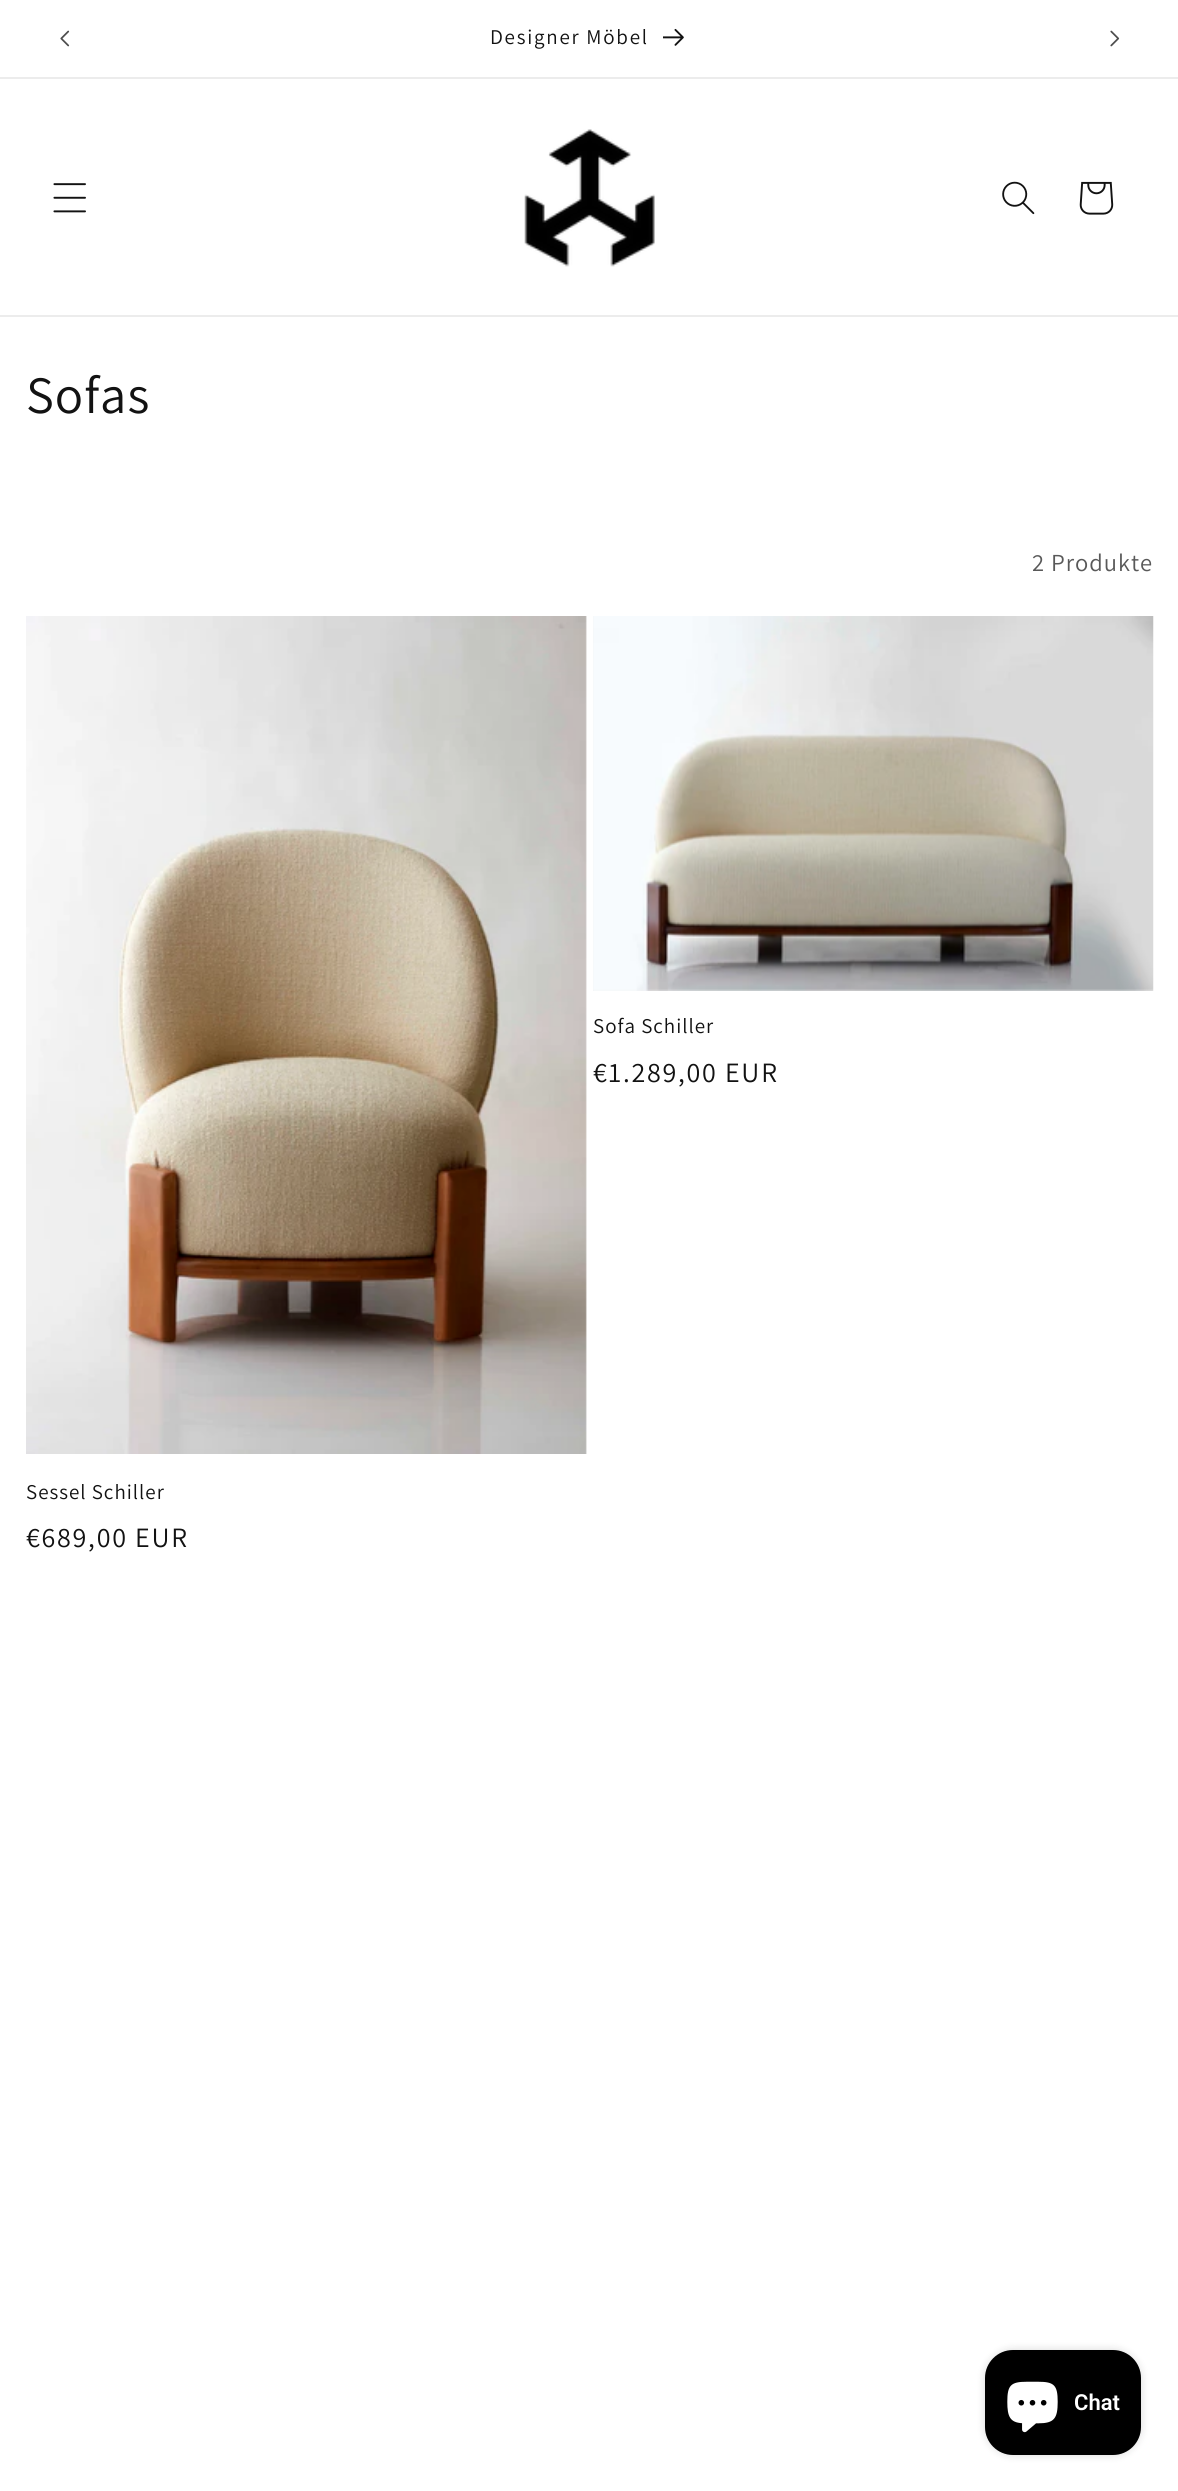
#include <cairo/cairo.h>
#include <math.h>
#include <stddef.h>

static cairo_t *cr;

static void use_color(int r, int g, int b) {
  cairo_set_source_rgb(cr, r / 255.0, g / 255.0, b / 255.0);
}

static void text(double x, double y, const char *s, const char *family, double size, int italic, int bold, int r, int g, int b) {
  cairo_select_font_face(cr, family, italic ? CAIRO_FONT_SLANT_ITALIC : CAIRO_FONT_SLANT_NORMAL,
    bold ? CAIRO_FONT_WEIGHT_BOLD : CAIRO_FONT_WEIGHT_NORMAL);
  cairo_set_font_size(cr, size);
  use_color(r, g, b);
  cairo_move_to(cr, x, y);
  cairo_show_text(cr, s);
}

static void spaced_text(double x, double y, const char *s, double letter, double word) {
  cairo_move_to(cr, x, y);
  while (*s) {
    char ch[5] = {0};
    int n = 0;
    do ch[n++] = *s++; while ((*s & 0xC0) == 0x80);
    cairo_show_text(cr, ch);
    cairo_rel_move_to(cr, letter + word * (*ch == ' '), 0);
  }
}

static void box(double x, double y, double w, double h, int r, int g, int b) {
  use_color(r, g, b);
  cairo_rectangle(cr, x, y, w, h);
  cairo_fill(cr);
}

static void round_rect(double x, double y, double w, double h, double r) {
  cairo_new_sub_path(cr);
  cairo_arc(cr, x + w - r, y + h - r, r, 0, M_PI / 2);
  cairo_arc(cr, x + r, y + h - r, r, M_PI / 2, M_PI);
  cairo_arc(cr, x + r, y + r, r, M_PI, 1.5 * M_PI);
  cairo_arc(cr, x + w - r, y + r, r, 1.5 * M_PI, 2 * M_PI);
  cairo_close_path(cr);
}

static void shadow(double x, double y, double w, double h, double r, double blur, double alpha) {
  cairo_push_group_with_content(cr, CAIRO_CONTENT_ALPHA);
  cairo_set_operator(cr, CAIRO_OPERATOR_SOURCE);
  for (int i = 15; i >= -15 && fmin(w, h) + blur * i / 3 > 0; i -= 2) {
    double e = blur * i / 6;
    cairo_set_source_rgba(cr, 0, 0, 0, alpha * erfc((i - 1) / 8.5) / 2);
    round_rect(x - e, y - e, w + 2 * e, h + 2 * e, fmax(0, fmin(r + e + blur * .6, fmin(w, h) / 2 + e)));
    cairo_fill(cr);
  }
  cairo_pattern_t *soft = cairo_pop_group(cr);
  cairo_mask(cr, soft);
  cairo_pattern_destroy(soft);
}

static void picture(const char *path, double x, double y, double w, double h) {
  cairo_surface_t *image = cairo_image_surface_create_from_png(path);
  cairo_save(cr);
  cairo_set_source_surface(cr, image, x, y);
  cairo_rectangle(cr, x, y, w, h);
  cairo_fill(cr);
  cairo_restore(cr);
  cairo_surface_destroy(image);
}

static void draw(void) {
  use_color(255, 255, 255);
  cairo_paint(cr);
  box(0, 77, 1178, 2, 236, 236, 236);
  picture("img_01.png", 60, 30, 10, 17);
  picture("img_02.png", 663, 28, 21, 18);
  picture("img_03.png", 1110, 30, 10, 17);
  box(0, 315, 1178, 2, 236, 236, 236);
  picture("img_04.png", 53, 183, 33, 30);
  picture("img_05.png", 524, 129, 131, 138);
  picture("img_06.png", 1002, 181, 33, 34);
  picture("img_07.png", 1079, 181, 35, 34);
  box(593, 616, 560, 375, 243, 243, 243);
  picture("img_08.png", 593, 616, 561, 375);
  picture("img_09.png", 26, 616, 561, 838);
  use_color(0, 0, 0);
  shadow(985, 2350, 156, 105, 28, 4.5, 0.15);
  use_color(0, 0, 0);
  round_rect(985, 2350, 156, 105, 28);
  cairo_fill(cr);
  picture("img_10.png", 1007, 2381, 51, 52);
  cairo_select_font_face(cr, "Assistant", CAIRO_FONT_SLANT_NORMAL, CAIRO_FONT_WEIGHT_NORMAL);
  cairo_set_font_size(cr, 21);
  use_color(18, 18, 18);
  spaced_text(490, 44, "Designer Möbel", 1.75, 0);
  cairo_set_font_size(cr, 52.5);
  spaced_text(26, 413, "Sofas", 1, 0);
  cairo_set_font_size(cr, 24.5);
  use_color(89, 89, 89);
  spaced_text(1032, 571, "2 Produkte", 1, 0);
  cairo_set_font_size(cr, 21);
  use_color(18, 18, 18);
  spaced_text(593, 1033, "Sofa Schiller", 1, 0);
  cairo_set_font_size(cr, 28);
  spaced_text(593, 1082, "€1.289,00 EUR", 1.75, 0);
  cairo_set_font_size(cr, 21);
  spaced_text(26, 1499, "Sessel Schiller", 1, 0);
  cairo_set_font_size(cr, 28);
  spaced_text(26, 1547, "€689,00 EUR", 1.75, 0);
  text(1074, 2410, "Chat", "Roboto SemiBold", 22, 0, 0, 255, 255, 255);
}

int main(void) {
  cairo_surface_t *surface = cairo_image_surface_create(CAIRO_FORMAT_RGB24, 1178, 2491);
  cr = cairo_create(surface);
  cairo_font_options_t *options = cairo_font_options_create();
  cairo_font_options_set_hint_metrics(options, CAIRO_HINT_METRICS_OFF);
  cairo_font_options_set_hint_style(options, CAIRO_HINT_STYLE_NONE);
  cairo_set_font_options(cr, options);
  cairo_set_miter_limit(cr, 4);
  draw();
  cairo_surface_write_to_png(surface, "out.png");
  cairo_font_options_destroy(options);
  cairo_destroy(cr);
  cairo_surface_destroy(surface);
  return 0;
}
